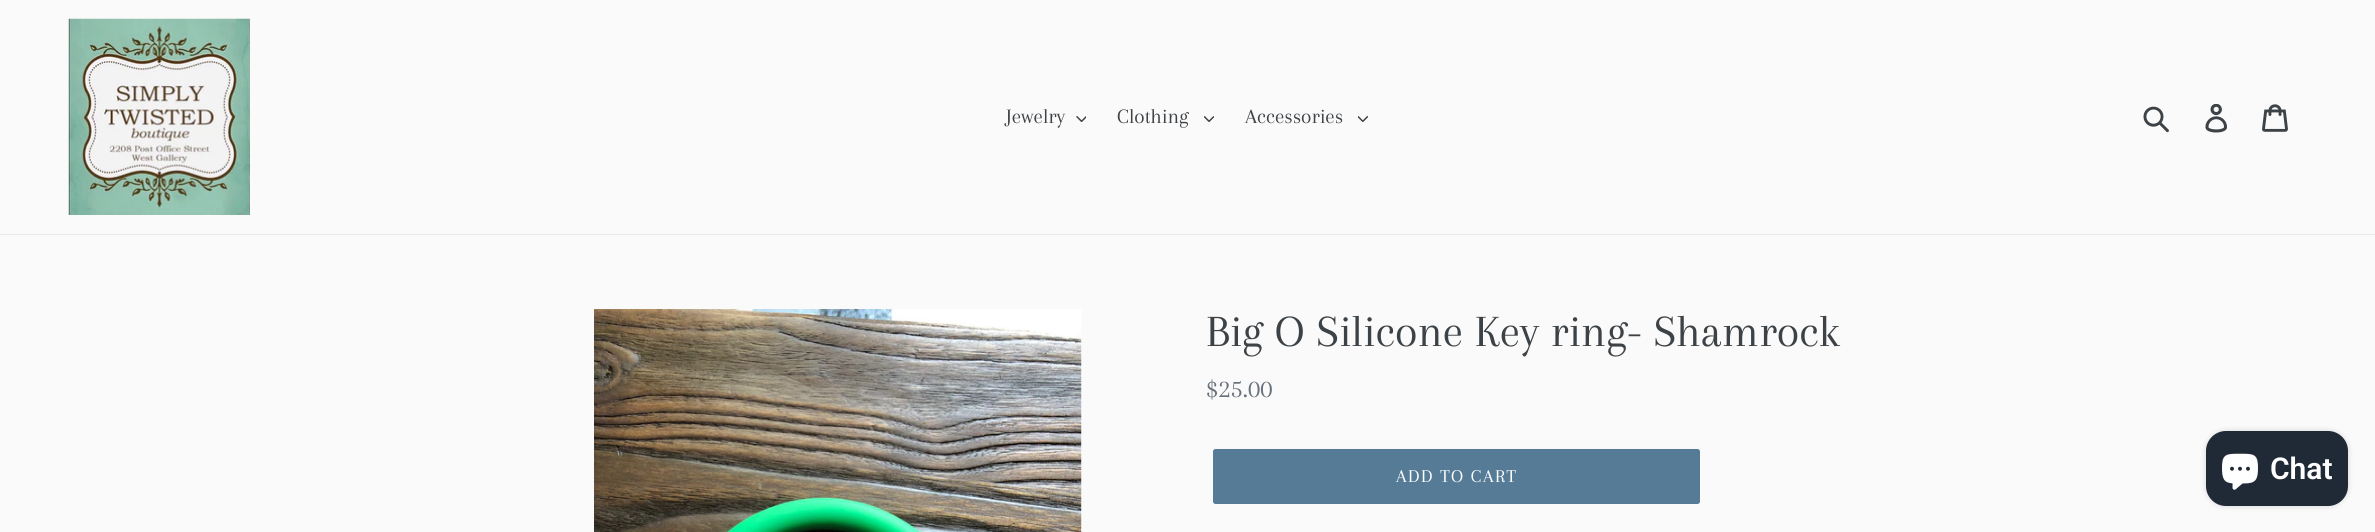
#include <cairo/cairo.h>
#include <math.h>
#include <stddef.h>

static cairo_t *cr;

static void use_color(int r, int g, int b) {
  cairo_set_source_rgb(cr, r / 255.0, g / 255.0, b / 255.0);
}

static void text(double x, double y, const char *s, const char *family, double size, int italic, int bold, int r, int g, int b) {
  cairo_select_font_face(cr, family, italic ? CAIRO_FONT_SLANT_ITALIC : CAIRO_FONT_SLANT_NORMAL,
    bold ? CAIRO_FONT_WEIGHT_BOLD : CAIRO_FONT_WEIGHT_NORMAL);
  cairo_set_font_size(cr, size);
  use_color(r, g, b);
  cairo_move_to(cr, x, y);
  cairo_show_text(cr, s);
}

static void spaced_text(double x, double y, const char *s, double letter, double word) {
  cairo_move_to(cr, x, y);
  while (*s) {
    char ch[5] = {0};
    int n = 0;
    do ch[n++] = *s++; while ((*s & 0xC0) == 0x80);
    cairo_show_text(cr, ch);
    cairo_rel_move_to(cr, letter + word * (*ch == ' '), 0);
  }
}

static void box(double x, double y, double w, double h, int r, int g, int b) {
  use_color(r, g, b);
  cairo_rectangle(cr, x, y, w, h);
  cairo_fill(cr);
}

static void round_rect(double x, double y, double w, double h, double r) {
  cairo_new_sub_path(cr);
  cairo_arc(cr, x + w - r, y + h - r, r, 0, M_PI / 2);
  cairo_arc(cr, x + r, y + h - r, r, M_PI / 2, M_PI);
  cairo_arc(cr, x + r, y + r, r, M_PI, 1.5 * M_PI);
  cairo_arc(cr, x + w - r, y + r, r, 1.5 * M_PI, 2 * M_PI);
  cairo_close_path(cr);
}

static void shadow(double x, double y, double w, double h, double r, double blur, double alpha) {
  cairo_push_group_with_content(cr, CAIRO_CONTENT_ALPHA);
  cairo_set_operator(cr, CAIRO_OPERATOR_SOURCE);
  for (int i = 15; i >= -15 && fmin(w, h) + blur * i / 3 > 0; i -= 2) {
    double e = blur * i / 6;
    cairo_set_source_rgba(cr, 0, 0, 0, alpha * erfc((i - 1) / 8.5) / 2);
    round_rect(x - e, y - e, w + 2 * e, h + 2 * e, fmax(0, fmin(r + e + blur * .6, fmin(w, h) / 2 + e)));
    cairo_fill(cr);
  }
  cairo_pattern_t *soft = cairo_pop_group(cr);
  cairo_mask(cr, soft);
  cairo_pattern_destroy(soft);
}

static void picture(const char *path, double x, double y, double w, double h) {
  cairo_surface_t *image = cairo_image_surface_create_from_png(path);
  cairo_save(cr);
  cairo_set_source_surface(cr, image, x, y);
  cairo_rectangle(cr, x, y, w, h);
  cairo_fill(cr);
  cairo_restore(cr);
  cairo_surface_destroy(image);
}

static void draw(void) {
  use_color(250, 250, 250);
  cairo_paint(cr);
  box(0, 234, 2375, 1, 232, 233, 235);
  picture("img_01.png", 68, 18, 182, 197);
  picture("img_02.png", 1076, 116, 10, 6);
  picture("img_03.png", 1204, 116, 10, 6);
  picture("img_04.png", 1358, 116, 11, 6);
  picture("img_05.png", 2143, 106, 26, 27);
  picture("img_06.png", 2205, 104, 22, 29);
  picture("img_07.png", 2262, 104, 26, 28);
  picture("img_08.png", 594, 309, 488, 223);
  use_color(85, 123, 151);
  round_rect(1213, 449, 487, 55, 2.5);
  cairo_fill(cr);
  use_color(0, 0, 0);
  shadow(2206, 431, 142, 75, 20, 3, 0.15);
  use_color(32, 42, 54);
  round_rect(2206, 431, 142, 75, 20);
  cairo_fill(cr);
  picture("img_09.png", 2222, 453, 36, 37);
  text(1006, 123, "Jewelry", "Arapey", 21.25, 0, 0, 61, 66, 70);
  text(1117, 123, "Clothing", "Arapey", 21.25, 0, 0, 61, 66, 70);
  text(1245, 123, "Accessories", "Arapey", 21.25, 0, 0, 61, 66, 70);
  text(1206, 346, "Big O Silicone Key ring- Shamrock", "Arapey", 46.25, 0, 0, 61, 66, 70);
  text(1206, 397, "$25.00", "Arapey", 26.5, 0, 0, 105, 114, 123);
  cairo_set_font_size(cr, 18.75);
  use_color(255, 255, 255);
  spaced_text(1396, 482, "ADD TO CART", 1.5, 0);
  text(2270, 479, "Chat", "Roboto SemiBold", 30, 0, 0, 255, 255, 255);
}

int main(void) {
  cairo_surface_t *surface = cairo_image_surface_create(CAIRO_FORMAT_RGB24, 2375, 532);
  cr = cairo_create(surface);
  cairo_font_options_t *options = cairo_font_options_create();
  cairo_font_options_set_hint_metrics(options, CAIRO_HINT_METRICS_OFF);
  cairo_font_options_set_hint_style(options, CAIRO_HINT_STYLE_NONE);
  cairo_set_font_options(cr, options);
  cairo_set_miter_limit(cr, 4);
  draw();
  cairo_surface_write_to_png(surface, "out.png");
  cairo_font_options_destroy(options);
  cairo_destroy(cr);
  cairo_surface_destroy(surface);
  return 0;
}
